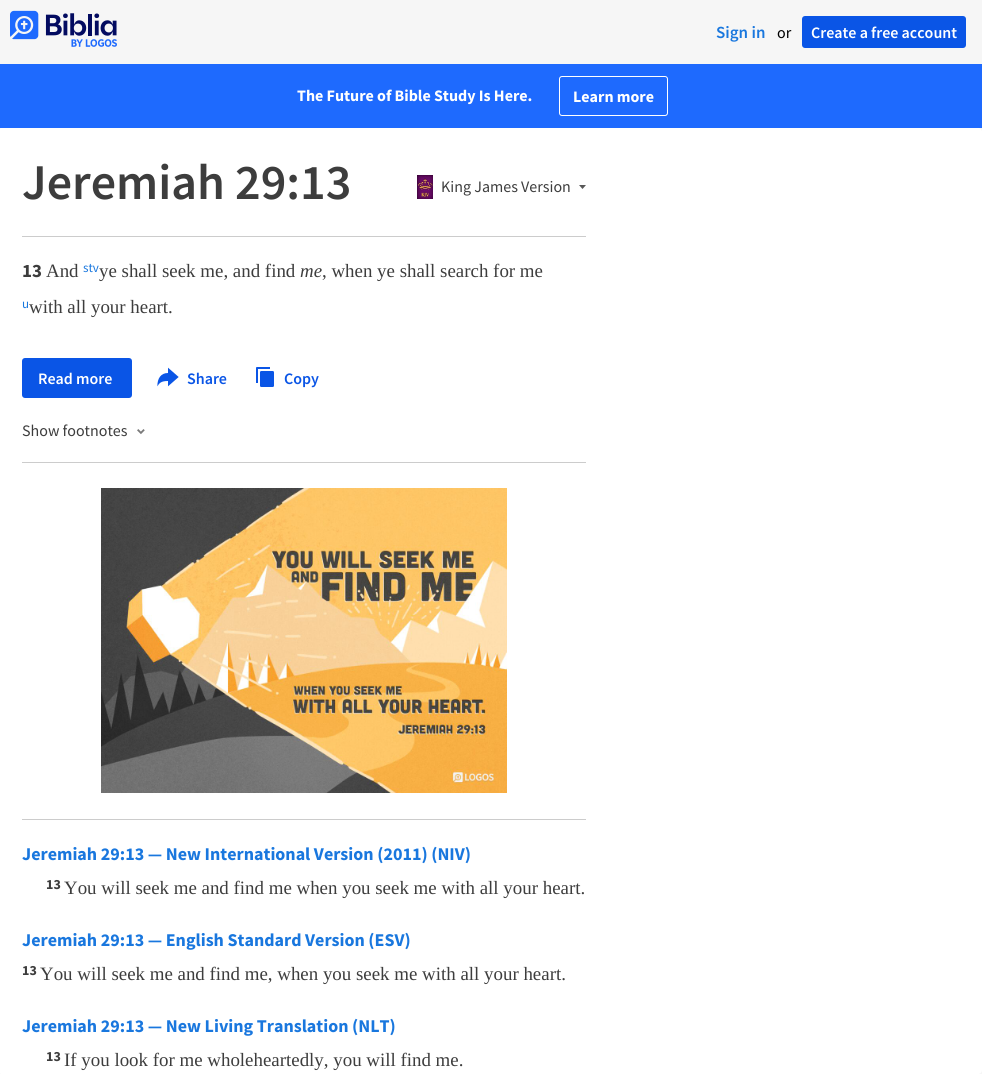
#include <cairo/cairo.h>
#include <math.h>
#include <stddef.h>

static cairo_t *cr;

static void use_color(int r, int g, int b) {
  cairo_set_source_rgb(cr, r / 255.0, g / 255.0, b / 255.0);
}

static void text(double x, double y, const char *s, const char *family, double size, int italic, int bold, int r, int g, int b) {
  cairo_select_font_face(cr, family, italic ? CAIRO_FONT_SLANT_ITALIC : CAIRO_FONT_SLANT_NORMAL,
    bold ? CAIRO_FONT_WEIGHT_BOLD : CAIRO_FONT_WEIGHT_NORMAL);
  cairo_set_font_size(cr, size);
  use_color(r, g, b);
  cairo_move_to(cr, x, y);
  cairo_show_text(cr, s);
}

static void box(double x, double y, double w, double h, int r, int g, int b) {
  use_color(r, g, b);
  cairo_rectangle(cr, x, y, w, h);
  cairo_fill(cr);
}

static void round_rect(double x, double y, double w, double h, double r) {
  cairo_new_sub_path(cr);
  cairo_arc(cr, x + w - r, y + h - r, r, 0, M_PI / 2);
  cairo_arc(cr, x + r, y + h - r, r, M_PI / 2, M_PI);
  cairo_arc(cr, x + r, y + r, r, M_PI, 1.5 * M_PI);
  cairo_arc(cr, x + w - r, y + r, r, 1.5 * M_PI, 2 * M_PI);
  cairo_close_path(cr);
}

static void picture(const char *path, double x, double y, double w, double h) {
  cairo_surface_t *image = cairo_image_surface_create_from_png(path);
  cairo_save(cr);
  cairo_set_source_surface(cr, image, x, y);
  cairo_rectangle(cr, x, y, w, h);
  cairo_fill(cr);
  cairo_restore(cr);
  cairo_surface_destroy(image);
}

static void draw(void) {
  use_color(246, 246, 246);
  cairo_paint(cr);
  picture("img_01.png", 10, 10, 107, 37);
  use_color(10, 85, 230);
  round_rect(802, 16, 164, 32, 3);
  cairo_fill(cr);
  box(0, 64, 982, 64, 30, 106, 254);
  round_rect(559.5, 76.5, 108, 39, 2.5);
  use_color(255, 255, 255);
  cairo_set_line_width(cr, 1);
  cairo_stroke(cr);
  round_rect(-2, 128, 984, 946, 4);
  cairo_fill(cr);
  box(22, 236, 564, 1, 204, 204, 204);
  picture("img_02.png", 417, 175, 16, 24);
  use_color(88, 88, 88);
  cairo_set_fill_rule(cr, CAIRO_FILL_RULE_EVEN_ODD);
  cairo_new_path(cr);
  cairo_move_to(cr, 582.5, 189);
  cairo_line_to(cr, 586, 185);
  cairo_line_to(cr, 579, 185);
  cairo_close_path(cr);
  cairo_fill(cr);
  use_color(10, 85, 230);
  round_rect(22, 358, 110, 40, 3);
  cairo_fill(cr);
  picture("img_03.png", 157, 367, 22, 20);
  picture("img_04.png", 256, 367, 18, 20);
  picture("img_05.png", 137, 429, 8, 6);
  box(22, 462, 564, 1, 204, 204, 204);
  picture("img_06.png", 101, 488, 406, 305);
  box(22, 819, 564, 1, 204, 204, 204);
  text(716, 38, "Sign in", "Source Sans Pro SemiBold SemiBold", 17, 0, 0, 25, 119, 222);
  text(777, 38, "or", "Source Sans Pro", 16, 0, 0, 0, 0, 0);
  text(811, 38, "Create a free account", "Source Sans Pro SemiBold SemiBold", 16, 0, 0, 255, 255, 255);
  text(297, 101, "The Future of Bible Study Is Here.", "Source Sans Pro", 16, 0, 1, 255, 255, 255);
  text(573, 102, "Learn more", "Source Sans Pro", 16, 0, 1, 255, 255, 255);
  text(22, 199, "Jeremiah 29:13", "Source Sans Pro SemiBold SemiBold", 50, 0, 0, 61, 61, 61);
  text(441, 192, "King James Version", "Source Sans Pro", 16, 0, 0, 61, 61, 61);
  text(22, 277, "13", "Source Sans Pro", 18.9, 0, 1, 61, 61, 61);
  text(46, 277, "And", "Liberation Serif", 18.9, 0, 0, 61, 61, 61);
  text(83, 272, "stv", "Source Sans Pro", 13, 0, 0, 25, 119, 222);
  text(99, 277, "ye shall seek me, and find", "Liberation Serif", 18.9, 0, 0, 61, 61, 61);
  text(300, 277, "me", "Liberation Serif", 18.9, 1, 0, 61, 61, 61);
  text(322, 277, ", when ye shall search for me", "Liberation Serif", 18.9, 0, 0, 61, 61, 61);
  text(22, 308, "u", "Source Sans Pro", 13, 0, 0, 25, 119, 222);
  text(29, 313, "with all your heart.", "Liberation Serif", 18.9, 0, 0, 61, 61, 61);
  text(38, 384, "Read more", "Source Sans Pro SemiBold SemiBold", 16, 0, 0, 255, 255, 255);
  text(187, 384, "Share", "Source Sans Pro SemiBold SemiBold", 16, 0, 0, 10, 85, 230);
  text(284, 384, "Copy", "Source Sans Pro SemiBold SemiBold", 16, 0, 0, 10, 85, 230);
  text(22, 436, "Show footnotes", "Source Sans Pro", 16, 0, 0, 61, 61, 61);
  text(22, 860, "Jeremiah 29:13 — New International Version (2011) (NIV)", "Source Sans Pro", 18, 0, 1, 25, 119, 222);
  text(46, 889, "13", "Source Sans Pro", 14, 0, 1, 61, 61, 61);
  text(64, 894, "You will seek me and find me when you seek me with all your heart.", "Liberation Serif", 18.9, 0, 0, 61, 61, 61);
  text(22, 946, "Jeremiah 29:13 — English Standard Version (ESV)", "Source Sans Pro", 18, 0, 1, 25, 119, 222);
  text(22, 975, "13", "Source Sans Pro", 14, 0, 1, 61, 61, 61);
  text(40, 980, "You will seek me and find me, when you seek me with all your heart.", "Liberation Serif", 18.9, 0, 0, 61, 61, 61);
  text(22, 1032, "Jeremiah 29:13 — New Living Translation (NLT)", "Source Sans Pro", 18, 0, 1, 25, 119, 222);
  text(46, 1061, "13", "Source Sans Pro", 14, 0, 1, 61, 61, 61);
  text(64, 1066, "If you look for me wholeheartedly, you will find me.", "Liberation Serif", 18.9, 0, 0, 61, 61, 61);
}

int main(void) {
  cairo_surface_t *surface = cairo_image_surface_create(CAIRO_FORMAT_RGB24, 982, 1074);
  cr = cairo_create(surface);
  cairo_font_options_t *options = cairo_font_options_create();
  cairo_font_options_set_hint_metrics(options, CAIRO_HINT_METRICS_OFF);
  cairo_font_options_set_hint_style(options, CAIRO_HINT_STYLE_NONE);
  cairo_set_font_options(cr, options);
  cairo_set_miter_limit(cr, 4);
  draw();
  cairo_surface_write_to_png(surface, "out.png");
  cairo_font_options_destroy(options);
  cairo_destroy(cr);
  cairo_surface_destroy(surface);
  return 0;
}
